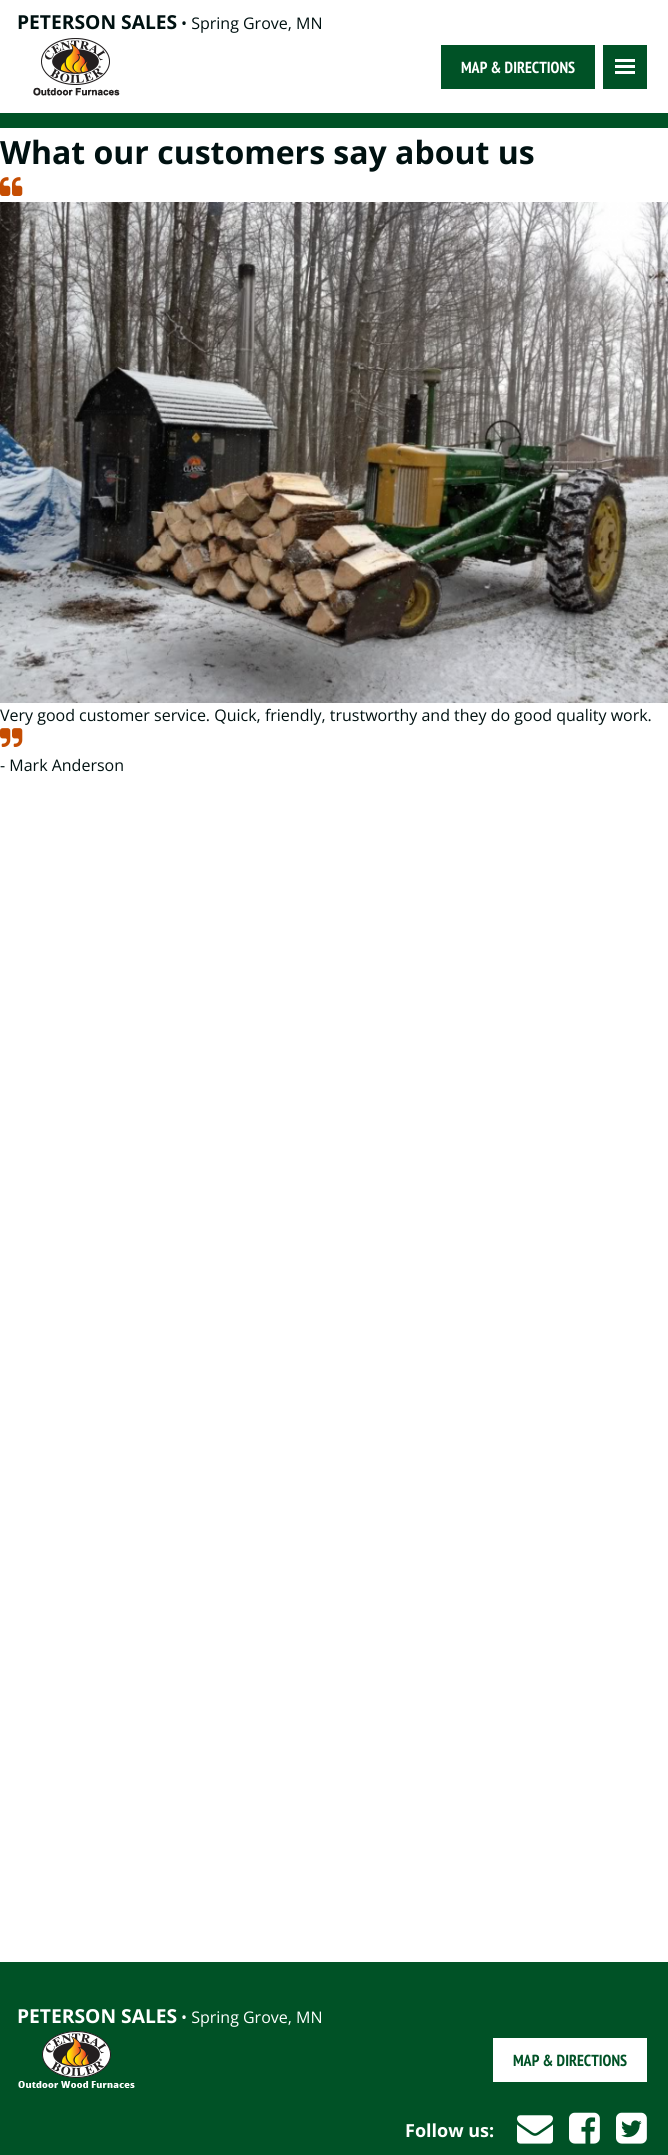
#include <cairo/cairo.h>
#include <math.h>
#include <stddef.h>

static cairo_t *cr;

static void use_color(int r, int g, int b) {
  cairo_set_source_rgb(cr, r / 255.0, g / 255.0, b / 255.0);
}

static void text(double x, double y, const char *s, const char *family, double size, int italic, int bold, int r, int g, int b) {
  cairo_select_font_face(cr, family, italic ? CAIRO_FONT_SLANT_ITALIC : CAIRO_FONT_SLANT_NORMAL,
    bold ? CAIRO_FONT_WEIGHT_BOLD : CAIRO_FONT_WEIGHT_NORMAL);
  cairo_set_font_size(cr, size);
  use_color(r, g, b);
  cairo_move_to(cr, x, y);
  cairo_show_text(cr, s);
}

static void box(double x, double y, double w, double h, int r, int g, int b) {
  use_color(r, g, b);
  cairo_rectangle(cr, x, y, w, h);
  cairo_fill(cr);
}

static void picture(const char *path, double x, double y, double w, double h) {
  cairo_surface_t *image = cairo_image_surface_create_from_png(path);
  cairo_save(cr);
  cairo_set_source_surface(cr, image, x, y);
  cairo_rectangle(cr, x, y, w, h);
  cairo_fill(cr);
  cairo_restore(cr);
  cairo_surface_destroy(image);
}

static void draw(void) {
  use_color(255, 255, 255);
  cairo_paint(cr);
  box(0, 113, 668, 15, 0, 82, 38);
  picture("img_01.png", 33, 38, 87, 58);
  box(441, 45, 154, 44, 0, 82, 38);
  box(603, 45, 44, 44, 0, 82, 38);
  box(615, 59, 20, 3, 255, 255, 255);
  box(615, 65, 20, 3, 255, 255, 255);
  box(615, 71, 20, 3, 255, 255, 255);
  picture("img_02.png", 0, 177, 23, 19);
  picture("img_03.png", 0, 202, 668, 501);
  picture("img_04.png", 0, 728, 23, 19);
  box(0, 1962, 668, 193, 0, 82, 38);
  picture("img_05.png", 18, 2031, 117, 57);
  box(493, 2038, 154, 44, 255, 255, 255);
  picture("img_06.png", 517, 2115, 36, 29);
  picture("img_07.png", 569, 2112, 31, 32);
  picture("img_08.png", 616, 2112, 31, 32);
  text(17, 29, "PETERSON SALES", "Open Sans", 19.25, 0, 1, 0, 17, 17);
  text(181, 29, "• Spring Grove, MN", "Open Sans", 16, 0, 0, 0, 17, 17);
  text(461, 73, "MAP & DIRECTIONS", "PT Sans Narrow", 16, 0, 1, 255, 255, 255);
  text(0, 164, "What our customers say about us", "Open Sans", 32, 0, 1, 0, 17, 17);
  text(0, 721, "Very good customer service. Quick, friendly, trustworthy and they do good quality work.", "Open Sans", 16, 0, 0, 0, 17, 17);
  text(0, 771, "- Mark Anderson", "Open Sans", 16, 0, 0, 0, 17, 17);
  text(17, 2023, "PETERSON SALES", "Open Sans", 19.25, 0, 1, 255, 255, 255);
  text(181, 2023, "• Spring Grove, MN", "Open Sans", 16, 0, 0, 255, 255, 255);
  text(513, 2066, "MAP & DIRECTIONS", "PT Sans Narrow", 16, 0, 1, 0, 82, 38);
  text(405, 2137, "Follow us:", "Open Sans", 18, 0, 1, 255, 255, 255);
}

int main(void) {
  cairo_surface_t *surface = cairo_image_surface_create(CAIRO_FORMAT_RGB24, 668, 2155);
  cr = cairo_create(surface);
  cairo_font_options_t *options = cairo_font_options_create();
  cairo_font_options_set_hint_metrics(options, CAIRO_HINT_METRICS_OFF);
  cairo_font_options_set_hint_style(options, CAIRO_HINT_STYLE_NONE);
  cairo_set_font_options(cr, options);
  cairo_set_miter_limit(cr, 4);
  draw();
  cairo_surface_write_to_png(surface, "out.png");
  cairo_font_options_destroy(options);
  cairo_destroy(cr);
  cairo_surface_destroy(surface);
  return 0;
}
